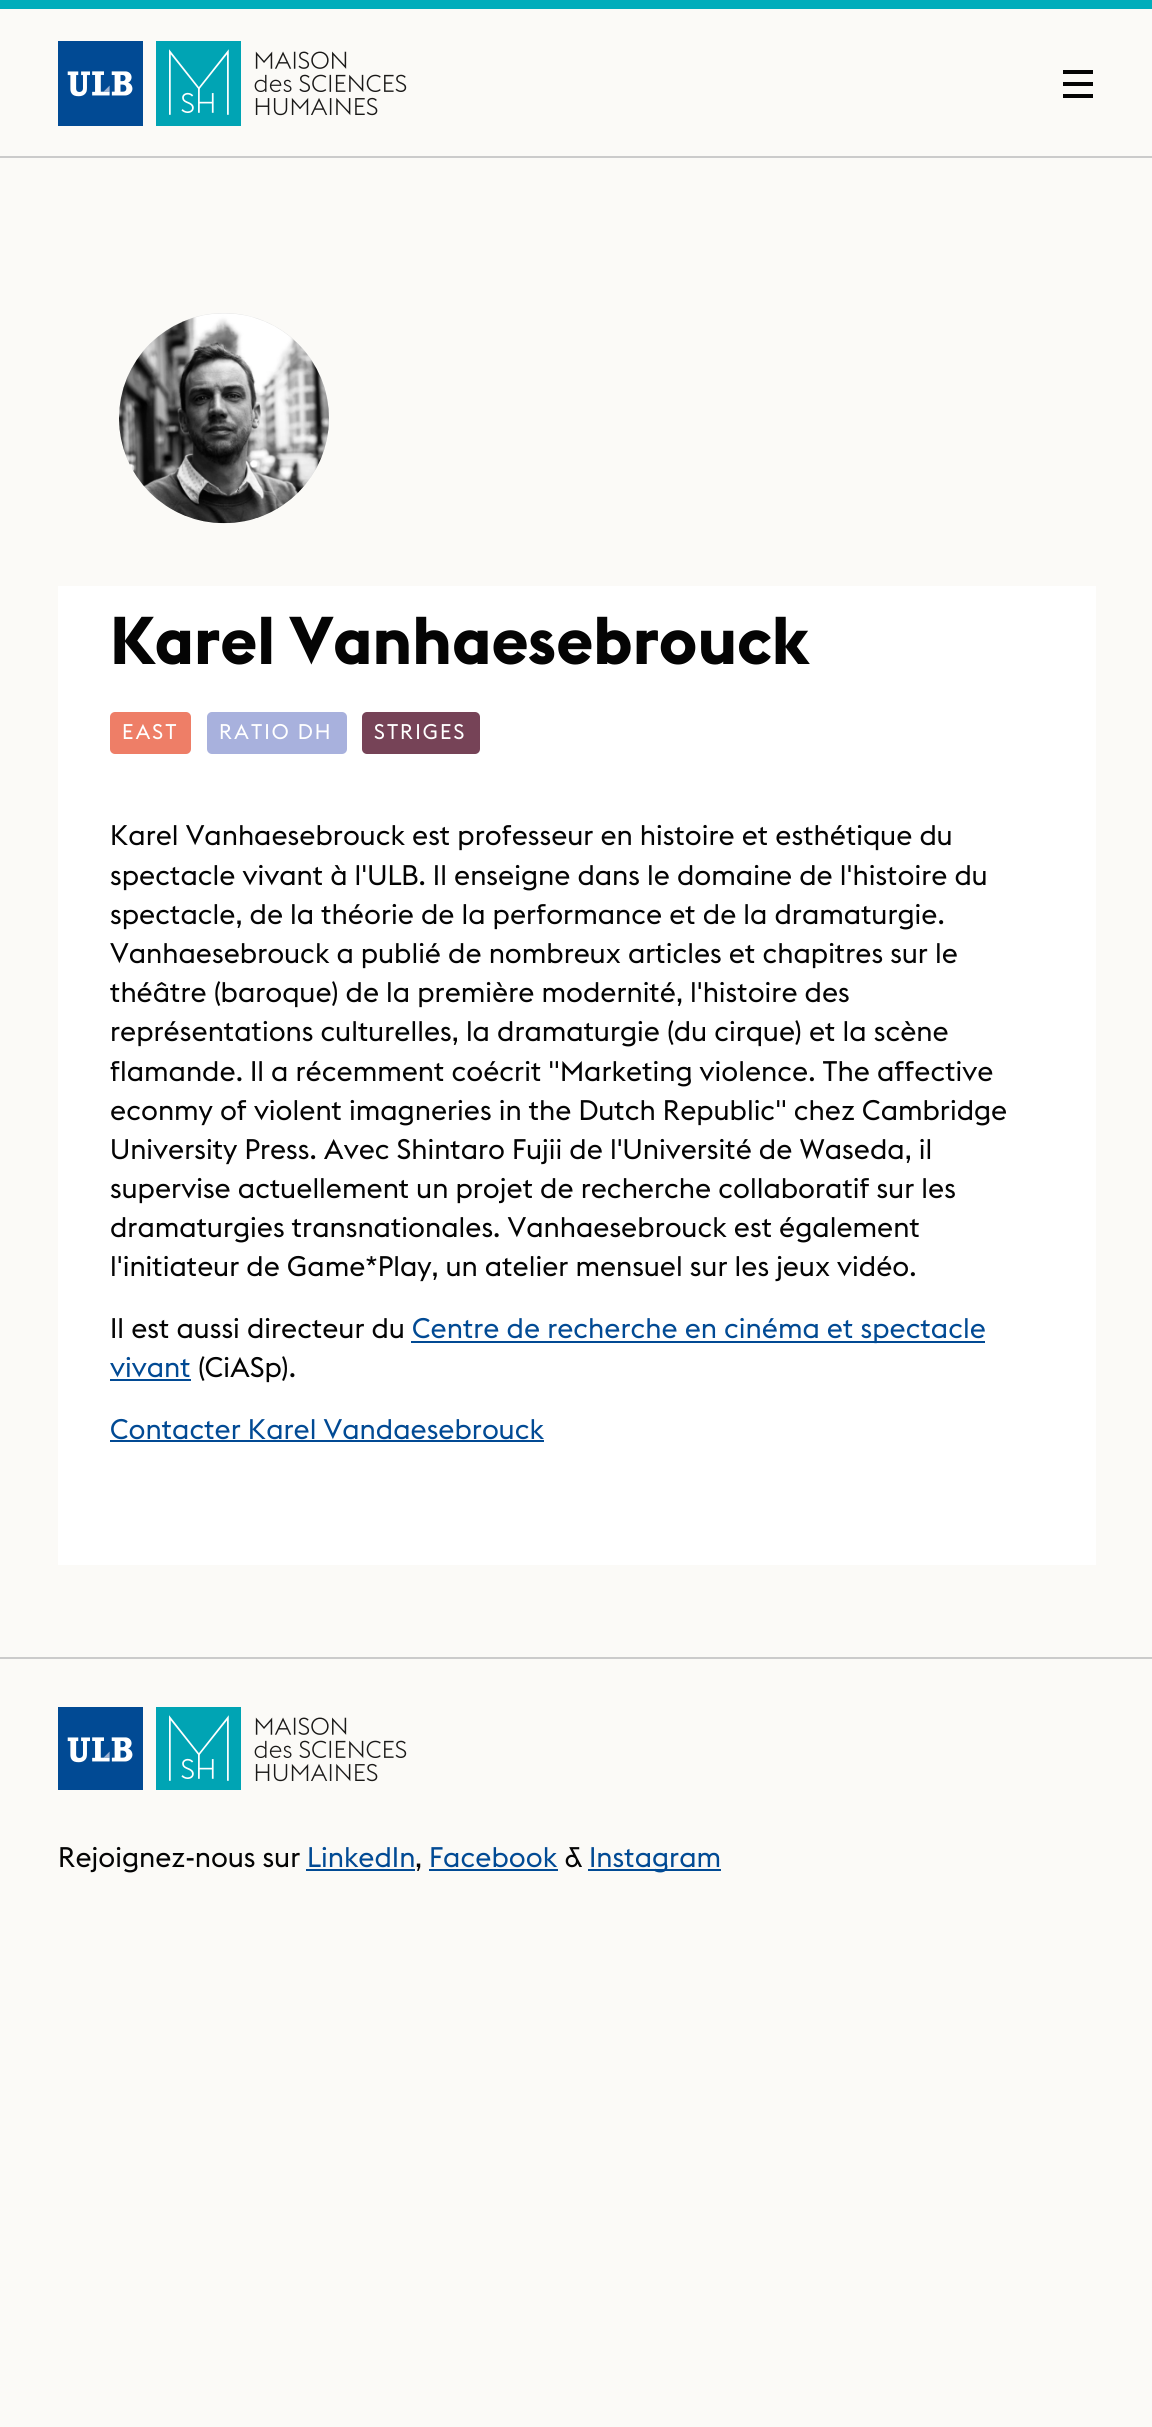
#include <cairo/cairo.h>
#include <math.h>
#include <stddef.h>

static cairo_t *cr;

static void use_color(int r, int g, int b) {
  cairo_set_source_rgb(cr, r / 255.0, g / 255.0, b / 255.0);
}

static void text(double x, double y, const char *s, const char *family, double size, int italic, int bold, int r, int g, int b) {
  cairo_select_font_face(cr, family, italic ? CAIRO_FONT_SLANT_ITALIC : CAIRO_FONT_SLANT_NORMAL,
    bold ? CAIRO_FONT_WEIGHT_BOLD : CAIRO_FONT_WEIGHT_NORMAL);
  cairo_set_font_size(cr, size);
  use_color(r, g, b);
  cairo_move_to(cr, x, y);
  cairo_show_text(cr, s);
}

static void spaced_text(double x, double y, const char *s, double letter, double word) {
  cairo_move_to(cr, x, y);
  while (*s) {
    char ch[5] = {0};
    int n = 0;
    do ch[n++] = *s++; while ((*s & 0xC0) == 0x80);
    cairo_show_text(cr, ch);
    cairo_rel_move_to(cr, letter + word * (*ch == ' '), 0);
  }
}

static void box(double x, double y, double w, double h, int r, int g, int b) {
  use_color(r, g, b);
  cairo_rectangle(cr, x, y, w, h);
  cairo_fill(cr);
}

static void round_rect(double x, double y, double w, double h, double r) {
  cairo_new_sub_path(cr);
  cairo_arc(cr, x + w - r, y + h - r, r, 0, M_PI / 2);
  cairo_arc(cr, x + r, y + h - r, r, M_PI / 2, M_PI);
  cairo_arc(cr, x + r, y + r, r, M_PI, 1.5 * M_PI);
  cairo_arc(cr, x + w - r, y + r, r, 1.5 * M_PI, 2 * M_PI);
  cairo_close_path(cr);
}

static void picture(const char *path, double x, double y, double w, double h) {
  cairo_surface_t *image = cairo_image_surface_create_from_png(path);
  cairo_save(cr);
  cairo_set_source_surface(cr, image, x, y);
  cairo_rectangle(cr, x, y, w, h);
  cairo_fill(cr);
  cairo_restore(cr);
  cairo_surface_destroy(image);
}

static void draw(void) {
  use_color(251, 250, 247);
  cairo_paint(cr);
  box(0, 0, 1152, 9, 1, 173, 187);
  box(0, 156, 1152, 2, 203, 203, 203);
  picture("img_01.png", 58, 41, 349, 85);
  box(1063, 70, 30, 4, 4, 4, 4);
  box(1063, 82, 30, 4, 4, 4, 4);
  box(1063, 94, 30, 4, 4, 4, 4);
  use_color(227, 227, 227);
  cairo_arc(cr, 224, 418, 105, 0, 2 * M_PI);
  cairo_fill(cr);
  picture("img_02.png", 119, 313, 210, 211);
  box(58, 586, 1038, 979, 255, 255, 255);
  use_color(238, 126, 103);
  round_rect(110, 712, 81, 42, 5);
  cairo_fill(cr);
  use_color(168, 177, 221);
  round_rect(207, 712, 140, 42, 5);
  cairo_fill(cr);
  use_color(118, 67, 87);
  round_rect(362, 712, 118, 42, 5);
  cairo_fill(cr);
  box(411, 1341, 574, 2, 1, 74, 148);
  box(110, 1379, 81, 2, 1, 74, 148);
  box(110, 1440, 434, 2, 1, 74, 148);
  box(0, 1657, 1152, 2, 203, 203, 203);
  picture("img_03.png", 58, 1707, 349, 83);
  box(306, 1869, 109, 2, 1, 74, 148);
  box(429, 1869, 129, 2, 1, 74, 148);
  box(588, 1869, 133, 2, 1, 74, 148);
  text(110, 664, "Karel Vanhaesebrouck", "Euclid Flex", 66.5, 0, 1, 4, 4, 4);
  cairo_select_font_face(cr, "Euclid Flex", CAIRO_FONT_SLANT_NORMAL, CAIRO_FONT_WEIGHT_NORMAL);
  cairo_set_font_size(cr, 21);
  use_color(255, 255, 255);
  spaced_text(122, 739, "EAST", 2, 0);
  spaced_text(219, 739, "RATIO DH", 2, 0);
  spaced_text(374, 739, "STRIGES", 2, 0);
  text(110, 845, "Karel Vanhaesebrouck est professeur en histoire et esthétique du", "Euclid Flex", 28, 0, 0, 4, 4, 4);
  text(110, 885, "spectacle vivant à l'ULB. Il enseigne dans le domaine de l'histoire du", "Euclid Flex", 28, 0, 0, 4, 4, 4);
  text(110, 924, "spectacle, de la théorie de la performance et de la dramaturgie.", "Euclid Flex", 28, 0, 0, 4, 4, 4);
  text(110, 963, "Vanhaesebrouck a publié de nombreux articles et chapitres sur le", "Euclid Flex", 28, 0, 0, 4, 4, 4);
  text(110, 1002, "théâtre (baroque) de la première modernité, l'histoire des", "Euclid Flex", 28, 0, 0, 4, 4, 4);
  text(110, 1041, "représentations culturelles, la dramaturgie (du cirque) et la scène", "Euclid Flex", 28, 0, 0, 4, 4, 4);
  text(110, 1081, "flamande. Il a récemment coécrit \"Marketing violence. The affective", "Euclid Flex", 28, 0, 0, 4, 4, 4);
  text(110, 1120, "econmy of violent imagneries in the Dutch Republic\" chez Cambridge", "Euclid Flex", 28, 0, 0, 4, 4, 4);
  text(110, 1159, "University Press. Avec Shintaro Fujii de l'Université de Waseda, il", "Euclid Flex", 28, 0, 0, 4, 4, 4);
  text(110, 1198, "supervise actuellement un projet de recherche collaboratif sur les", "Euclid Flex", 28, 0, 0, 4, 4, 4);
  text(110, 1237, "dramaturgies transnationales. Vanhaesebrouck est également", "Euclid Flex", 28, 0, 0, 4, 4, 4);
  text(110, 1276, "l'initiateur de Game*Play, un atelier mensuel sur les jeux vidéo.", "Euclid Flex", 28, 0, 0, 4, 4, 4);
  text(110, 1338, "Il est aussi directeur du", "Euclid Flex", 28, 0, 0, 4, 4, 4);
  text(412, 1338, "Centre de recherche en cinéma et spectacle", "Euclid Flex", 28, 0, 0, 1, 74, 148);
  text(110, 1377, "vivant", "Euclid Flex", 28, 0, 0, 1, 74, 148);
  text(198, 1377, "(CiASp).", "Euclid Flex", 28, 0, 0, 4, 4, 4);
  text(110, 1439, "Contacter Karel Vandaesebrouck", "Euclid Flex", 28, 0, 0, 1, 74, 148);
  text(58, 1867, "Rejoignez-nous sur", "Euclid Flex", 28, 0, 0, 4, 4, 4);
  text(307, 1867, "LinkedIn", "Euclid Flex", 28, 0, 0, 1, 74, 148);
  text(415, 1867, ",", "Euclid Flex", 28, 0, 0, 4, 4, 4);
  text(429, 1867, "Facebook", "Euclid Flex", 28, 0, 0, 1, 74, 148);
  text(565, 1867, "&", "Euclid Flex", 28, 0, 0, 4, 4, 4);
  text(589, 1867, "Instagram", "Euclid Flex", 28, 0, 0, 1, 74, 148);
}

int main(void) {
  cairo_surface_t *surface = cairo_image_surface_create(CAIRO_FORMAT_RGB24, 1152, 2427);
  cr = cairo_create(surface);
  cairo_font_options_t *options = cairo_font_options_create();
  cairo_font_options_set_hint_metrics(options, CAIRO_HINT_METRICS_OFF);
  cairo_font_options_set_hint_style(options, CAIRO_HINT_STYLE_NONE);
  cairo_set_font_options(cr, options);
  cairo_set_miter_limit(cr, 4);
  draw();
  cairo_surface_write_to_png(surface, "out.png");
  cairo_font_options_destroy(options);
  cairo_destroy(cr);
  cairo_surface_destroy(surface);
  return 0;
}
